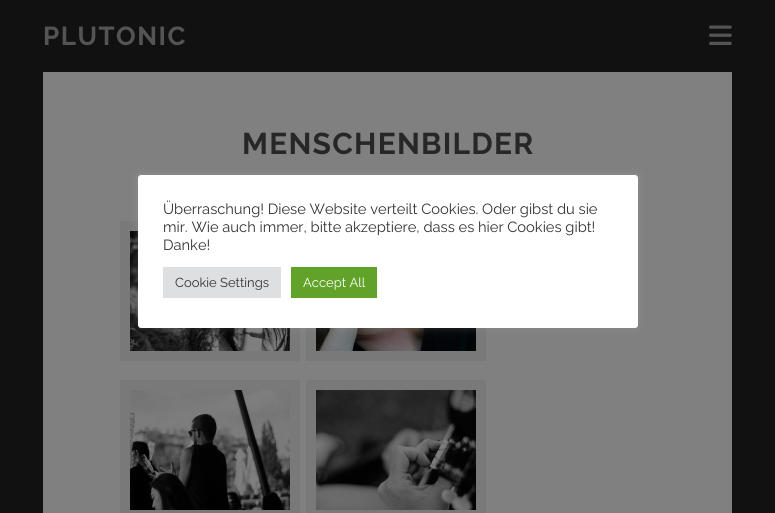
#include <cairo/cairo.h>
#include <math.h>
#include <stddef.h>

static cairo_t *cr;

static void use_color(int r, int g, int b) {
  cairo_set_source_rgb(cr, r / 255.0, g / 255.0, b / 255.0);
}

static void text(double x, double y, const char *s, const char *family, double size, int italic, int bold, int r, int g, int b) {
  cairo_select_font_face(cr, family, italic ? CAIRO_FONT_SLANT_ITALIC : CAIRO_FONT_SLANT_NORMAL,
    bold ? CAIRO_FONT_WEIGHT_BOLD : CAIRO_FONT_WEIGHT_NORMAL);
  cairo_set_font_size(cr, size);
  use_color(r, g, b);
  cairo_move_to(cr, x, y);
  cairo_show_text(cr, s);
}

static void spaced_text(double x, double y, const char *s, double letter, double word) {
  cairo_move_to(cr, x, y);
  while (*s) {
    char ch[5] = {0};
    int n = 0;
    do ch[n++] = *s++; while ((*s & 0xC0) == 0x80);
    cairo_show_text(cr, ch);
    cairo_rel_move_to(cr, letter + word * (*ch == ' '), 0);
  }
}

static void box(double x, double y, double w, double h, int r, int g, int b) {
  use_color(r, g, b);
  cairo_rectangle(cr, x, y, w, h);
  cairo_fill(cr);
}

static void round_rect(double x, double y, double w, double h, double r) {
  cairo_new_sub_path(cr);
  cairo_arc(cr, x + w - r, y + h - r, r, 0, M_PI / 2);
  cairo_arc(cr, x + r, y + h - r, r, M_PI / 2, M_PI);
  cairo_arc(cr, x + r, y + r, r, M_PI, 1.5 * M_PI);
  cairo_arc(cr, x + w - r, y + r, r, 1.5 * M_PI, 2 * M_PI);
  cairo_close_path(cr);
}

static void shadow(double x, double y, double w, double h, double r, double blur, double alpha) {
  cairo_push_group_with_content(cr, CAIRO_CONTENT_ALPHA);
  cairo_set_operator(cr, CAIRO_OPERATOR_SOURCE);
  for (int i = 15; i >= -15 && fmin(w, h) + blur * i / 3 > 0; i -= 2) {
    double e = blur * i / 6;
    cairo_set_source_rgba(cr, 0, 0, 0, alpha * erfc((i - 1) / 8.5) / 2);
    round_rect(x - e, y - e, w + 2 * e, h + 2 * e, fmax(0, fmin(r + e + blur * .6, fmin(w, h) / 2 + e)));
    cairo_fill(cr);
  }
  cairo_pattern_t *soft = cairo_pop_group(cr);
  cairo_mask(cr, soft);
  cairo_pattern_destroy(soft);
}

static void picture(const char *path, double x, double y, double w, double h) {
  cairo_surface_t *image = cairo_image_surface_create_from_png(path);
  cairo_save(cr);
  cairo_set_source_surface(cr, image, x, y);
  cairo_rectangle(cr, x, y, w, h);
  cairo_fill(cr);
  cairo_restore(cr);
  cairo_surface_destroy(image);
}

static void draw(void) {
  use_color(17, 17, 17);
  cairo_paint(cr);
  picture("img_01.png", 709, 25, 23, 20);
  box(43, 72, 689, 441, 128, 128, 128);
  cairo_rectangle(cr, 125, 226, 170, 130);
  use_color(121, 121, 121);
  cairo_set_line_width(cr, 10);
  cairo_stroke(cr);
  picture("img_02.png", 130, 231, 160, 120);
  cairo_rectangle(cr, 311, 226, 170, 130);
  cairo_stroke(cr);
  picture("img_03.png", 316, 328, 160, 23);
  cairo_rectangle(cr, 125, 385, 170, 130);
  cairo_stroke(cr);
  picture("img_04.png", 130, 390, 160, 120);
  cairo_rectangle(cr, 311, 385, 170, 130);
  cairo_stroke(cr);
  picture("img_05.png", 316, 390, 160, 120);
  use_color(172, 171, 171);
  shadow(138, 174, 500, 153, 3, 5, 0.3);
  use_color(255, 255, 255);
  round_rect(138, 175, 500, 153, 3);
  cairo_fill(cr);
  box(163, 267, 118, 31, 222, 223, 224);
  box(291, 267, 86, 31, 97, 162, 41);
  cairo_select_font_face(cr, "Raleway", CAIRO_FONT_SLANT_NORMAL, CAIRO_FONT_WEIGHT_BOLD);
  cairo_set_font_size(cr, 26);
  use_color(84, 84, 84);
  spaced_text(43, 45, "PLUTONIC", 1.5, 0);
  cairo_set_font_size(cr, 30);
  use_color(39, 39, 39);
  spaced_text(242, 154, "MENSCHENBILDER", 1.25, 0);
  text(163, 214, "Überraschung! Diese Website verteilt Cookies. Oder gibst du sie", "Raleway", 14.7, 0, 0, 51, 51, 51);
  text(163, 232, "mir. Wie auch immer, bitte akzeptiere, dass es hier Cookies gibt!", "Raleway", 14.7, 0, 0, 51, 51, 51);
  text(163, 250, "Danke!", "Raleway", 14.7, 0, 0, 51, 51, 51);
  text(175, 287, "Cookie Settings", "Raleway", 13, 0, 0, 51, 51, 51);
  text(303, 287, "Accept All", "Raleway", 13, 0, 0, 255, 255, 255);
}

int main(void) {
  cairo_surface_t *surface = cairo_image_surface_create(CAIRO_FORMAT_RGB24, 775, 513);
  cr = cairo_create(surface);
  cairo_font_options_t *options = cairo_font_options_create();
  cairo_font_options_set_hint_metrics(options, CAIRO_HINT_METRICS_OFF);
  cairo_font_options_set_hint_style(options, CAIRO_HINT_STYLE_NONE);
  cairo_set_font_options(cr, options);
  cairo_set_miter_limit(cr, 4);
  draw();
  cairo_surface_write_to_png(surface, "out.png");
  cairo_font_options_destroy(options);
  cairo_destroy(cr);
  cairo_surface_destroy(surface);
  return 0;
}
